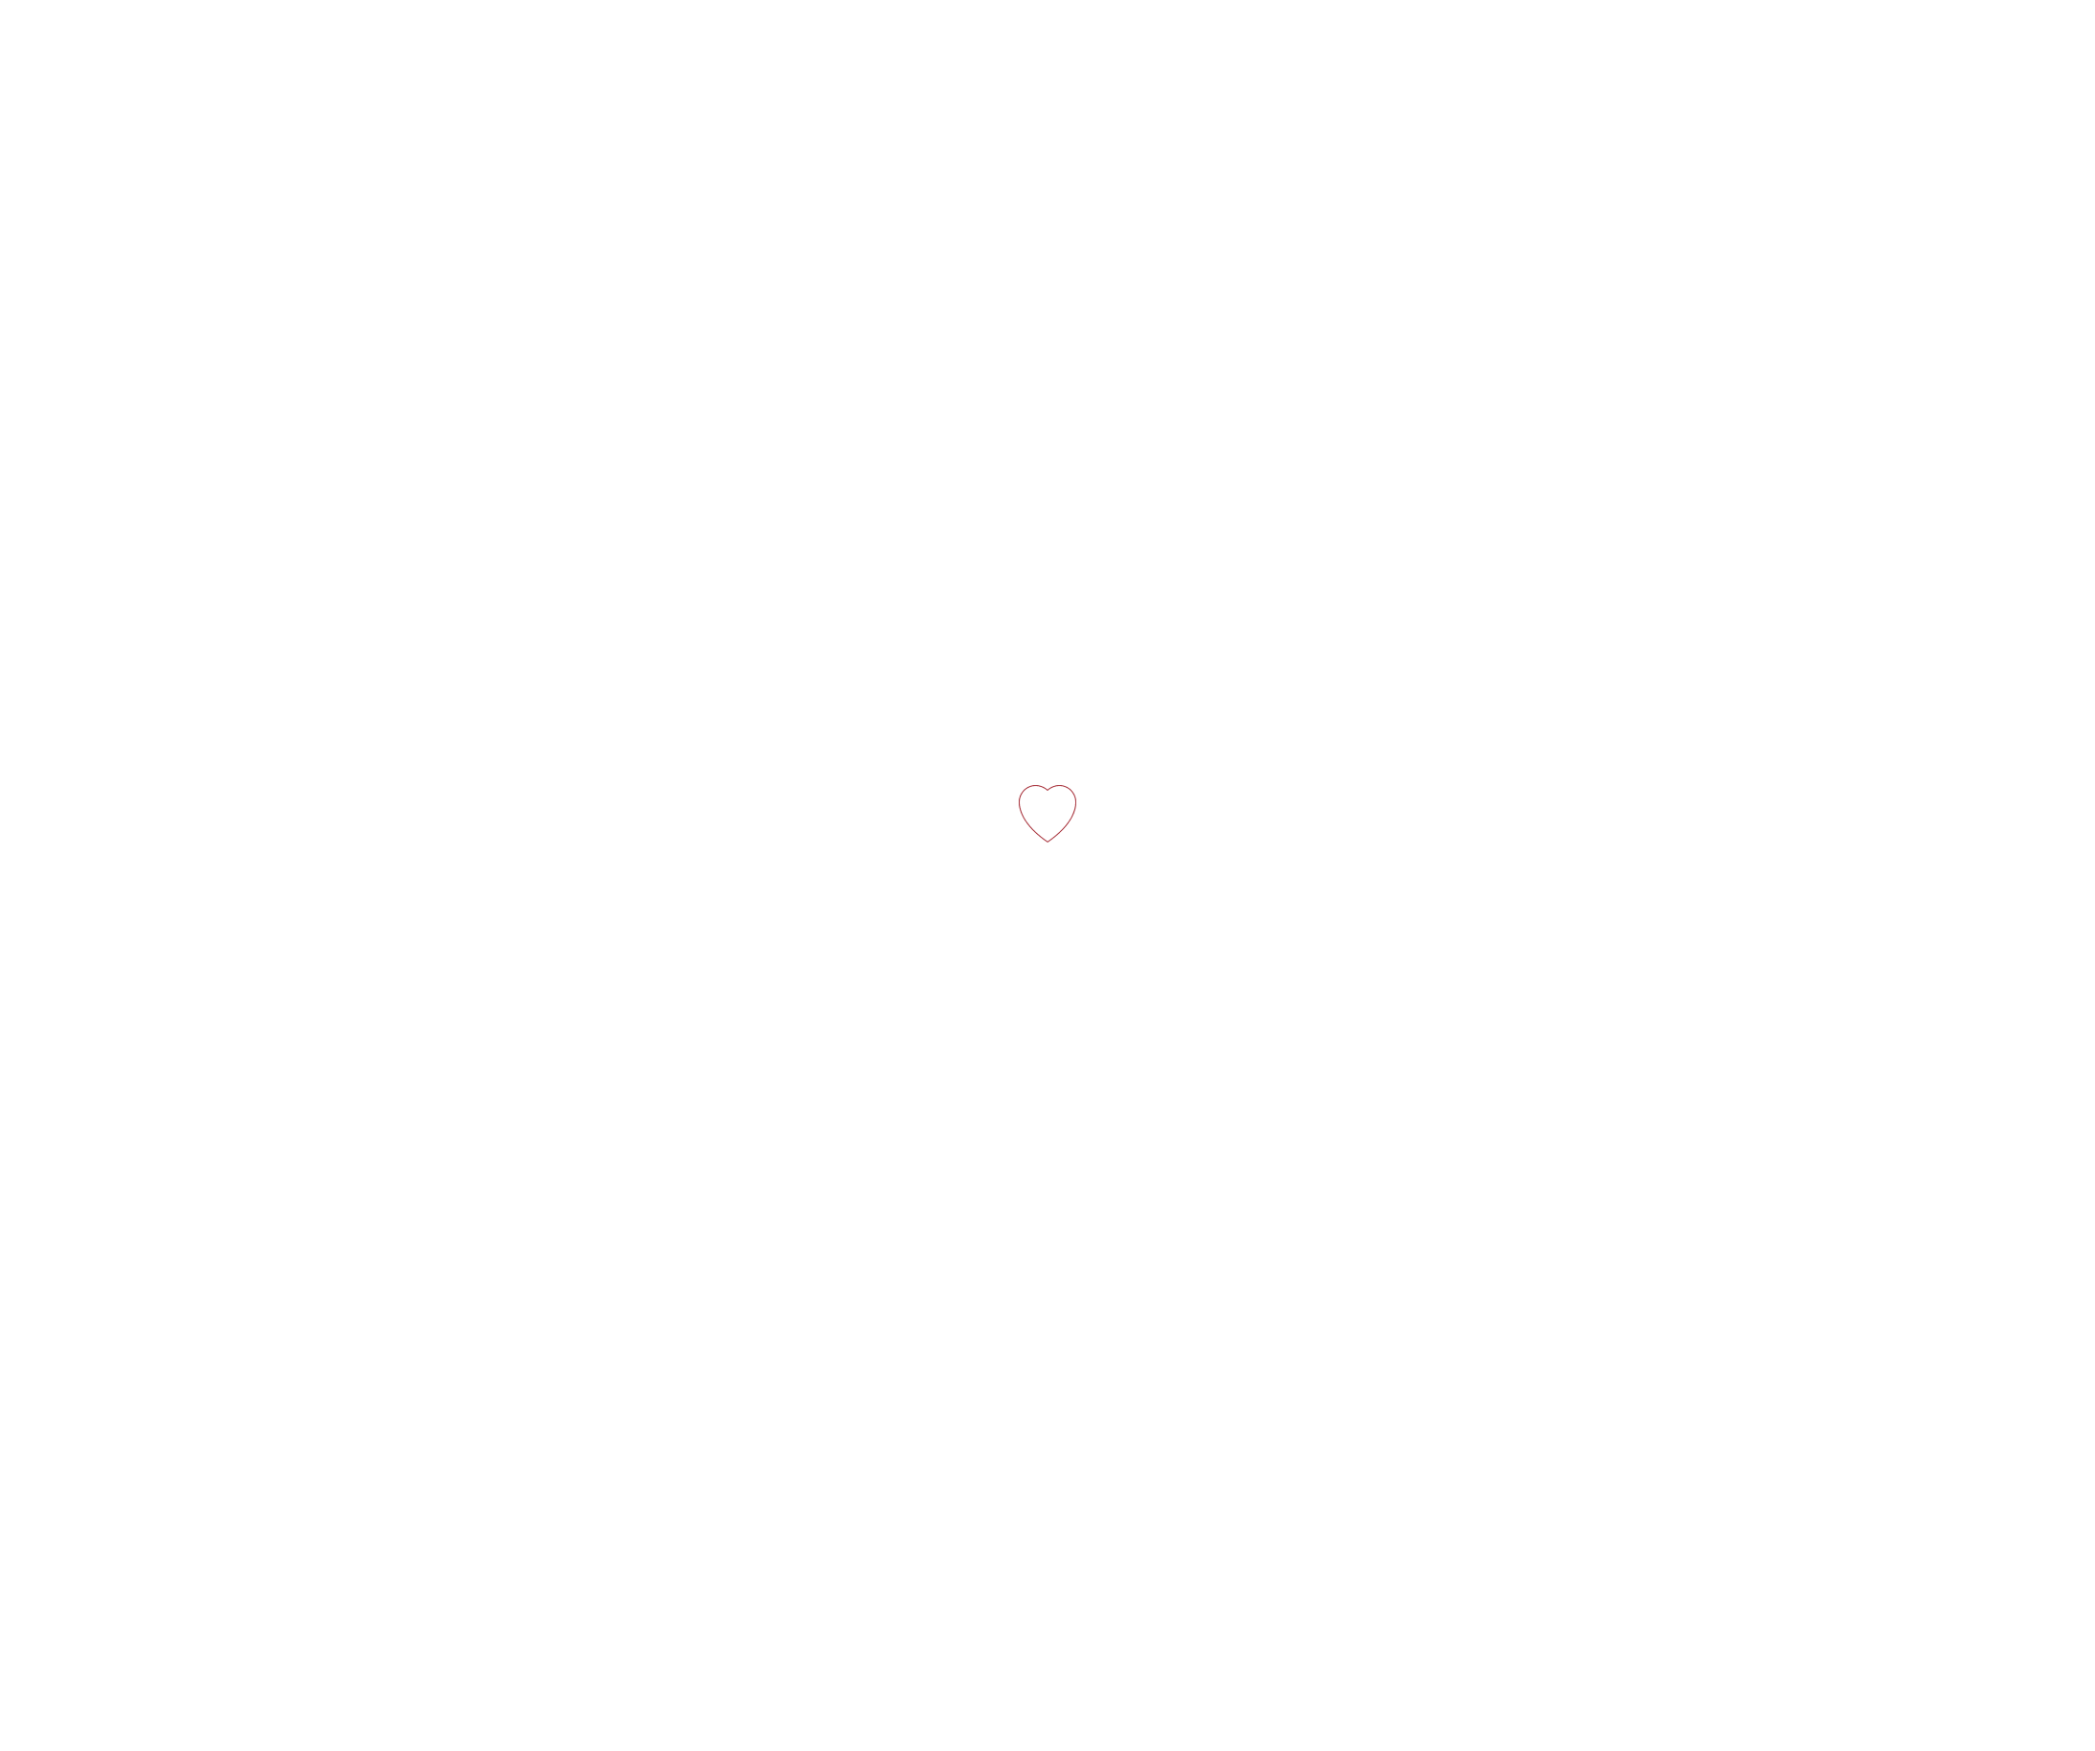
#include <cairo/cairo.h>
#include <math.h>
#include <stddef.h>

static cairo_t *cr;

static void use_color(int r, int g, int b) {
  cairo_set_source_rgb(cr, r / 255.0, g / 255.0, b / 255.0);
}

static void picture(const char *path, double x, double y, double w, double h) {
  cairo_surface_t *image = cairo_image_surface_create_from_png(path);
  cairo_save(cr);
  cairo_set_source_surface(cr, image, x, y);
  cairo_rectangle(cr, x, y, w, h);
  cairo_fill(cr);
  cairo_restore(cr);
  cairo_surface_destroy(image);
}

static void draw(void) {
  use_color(255, 255, 255);
  cairo_paint(cr);
  picture("img_01.png", 1018, 785, 59, 58);
}

int main(void) {
  cairo_surface_t *surface = cairo_image_surface_create(CAIRO_FORMAT_RGB24, 2095, 1751);
  cr = cairo_create(surface);
  cairo_font_options_t *options = cairo_font_options_create();
  cairo_font_options_set_hint_metrics(options, CAIRO_HINT_METRICS_OFF);
  cairo_font_options_set_hint_style(options, CAIRO_HINT_STYLE_NONE);
  cairo_set_font_options(cr, options);
  cairo_set_miter_limit(cr, 4);
  draw();
  cairo_surface_write_to_png(surface, "out.png");
  cairo_font_options_destroy(options);
  cairo_destroy(cr);
  cairo_surface_destroy(surface);
  return 0;
}
